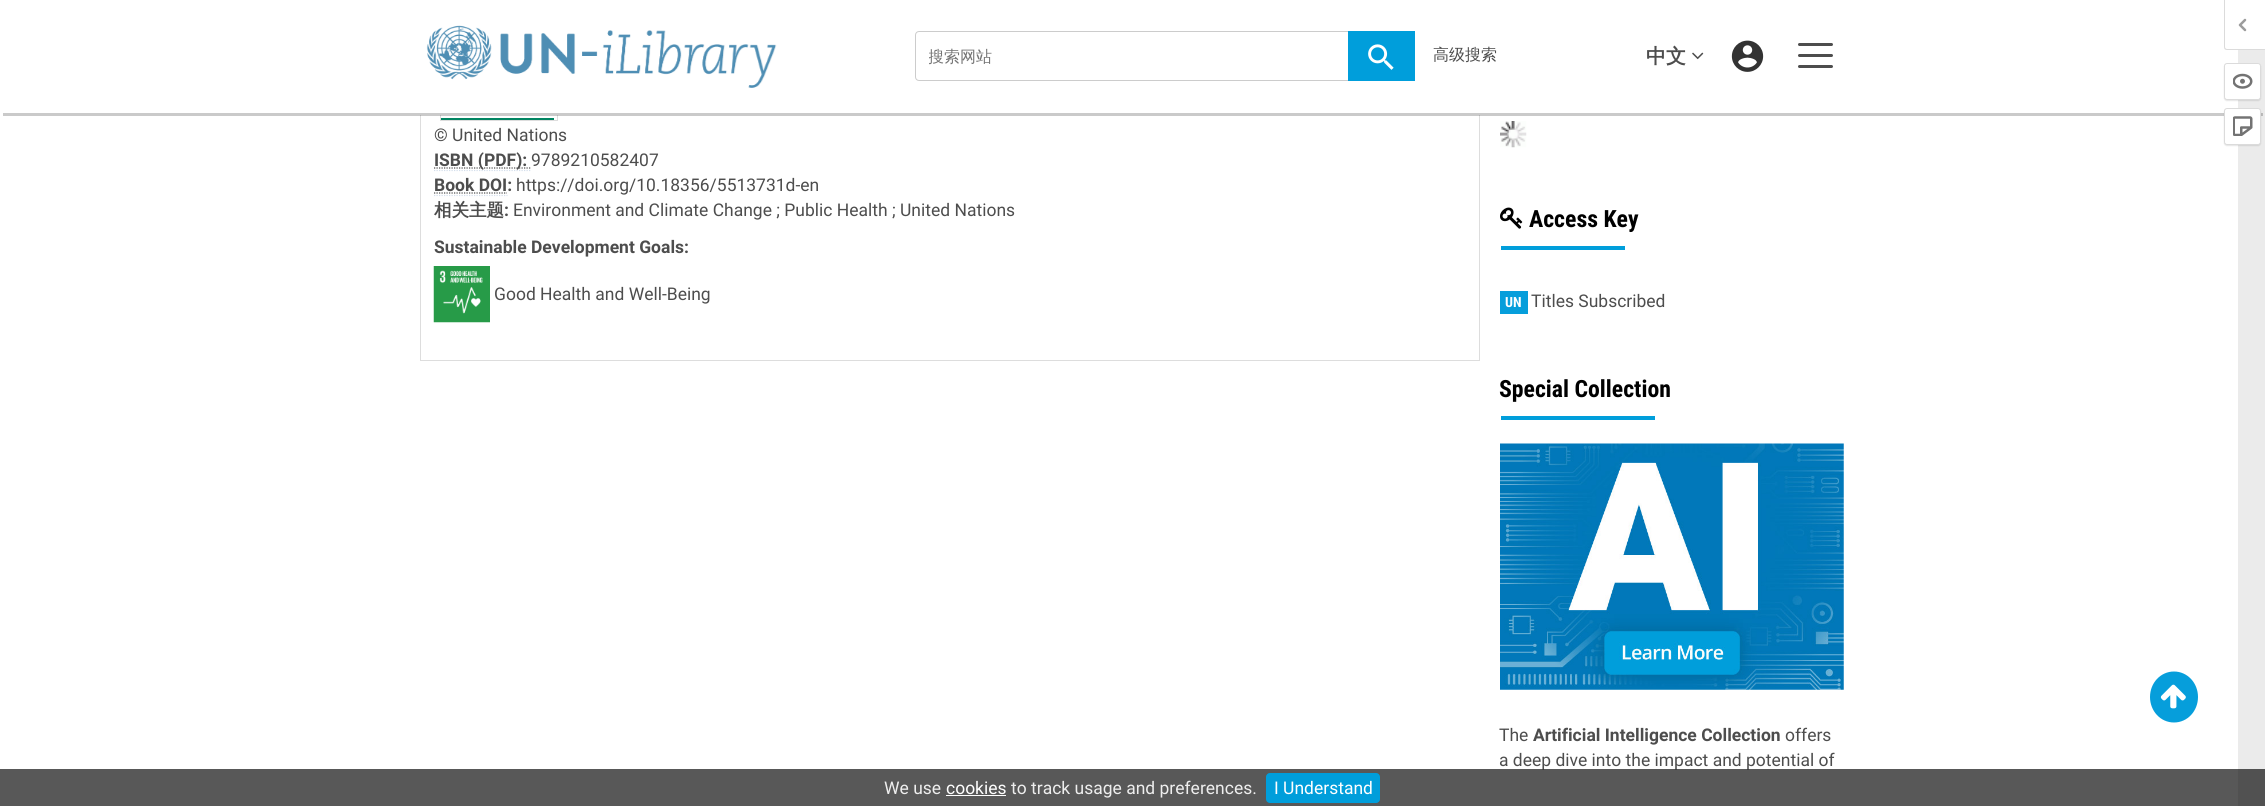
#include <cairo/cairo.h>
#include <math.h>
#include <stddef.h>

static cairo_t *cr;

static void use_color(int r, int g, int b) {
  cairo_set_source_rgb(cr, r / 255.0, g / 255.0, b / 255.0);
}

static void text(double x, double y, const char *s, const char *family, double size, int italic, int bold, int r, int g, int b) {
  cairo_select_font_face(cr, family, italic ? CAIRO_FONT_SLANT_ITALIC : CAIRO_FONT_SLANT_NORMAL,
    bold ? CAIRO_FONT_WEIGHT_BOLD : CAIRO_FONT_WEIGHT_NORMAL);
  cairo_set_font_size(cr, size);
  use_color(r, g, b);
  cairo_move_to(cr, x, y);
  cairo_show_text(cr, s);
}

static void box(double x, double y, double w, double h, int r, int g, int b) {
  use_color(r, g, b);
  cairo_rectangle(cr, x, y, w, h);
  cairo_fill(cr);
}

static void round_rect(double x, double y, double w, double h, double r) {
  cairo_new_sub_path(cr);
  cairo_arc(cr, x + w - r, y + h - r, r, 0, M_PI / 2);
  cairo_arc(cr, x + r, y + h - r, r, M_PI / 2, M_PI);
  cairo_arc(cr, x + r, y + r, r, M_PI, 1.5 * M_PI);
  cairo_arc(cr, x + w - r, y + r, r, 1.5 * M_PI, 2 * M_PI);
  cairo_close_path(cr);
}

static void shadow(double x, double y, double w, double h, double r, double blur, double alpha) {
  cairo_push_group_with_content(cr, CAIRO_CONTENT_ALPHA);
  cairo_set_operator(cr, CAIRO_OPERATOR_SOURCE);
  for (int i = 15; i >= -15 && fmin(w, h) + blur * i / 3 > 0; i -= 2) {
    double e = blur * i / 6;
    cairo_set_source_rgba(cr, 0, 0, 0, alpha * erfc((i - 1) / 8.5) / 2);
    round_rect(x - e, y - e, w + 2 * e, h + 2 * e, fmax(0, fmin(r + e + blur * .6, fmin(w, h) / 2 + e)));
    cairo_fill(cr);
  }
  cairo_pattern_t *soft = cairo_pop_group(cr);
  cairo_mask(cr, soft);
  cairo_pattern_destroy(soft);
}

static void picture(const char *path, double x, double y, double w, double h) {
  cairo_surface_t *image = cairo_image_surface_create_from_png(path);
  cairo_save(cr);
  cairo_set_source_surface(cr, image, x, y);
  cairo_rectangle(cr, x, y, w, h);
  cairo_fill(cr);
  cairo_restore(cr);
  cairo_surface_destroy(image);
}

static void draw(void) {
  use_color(255, 255, 255);
  cairo_paint(cr);
  cairo_rectangle(cr, 420.5, 109.5, 1059, 251);
  use_color(221, 221, 221);
  cairo_set_line_width(cr, 1);
  cairo_stroke(cr);
  cairo_rectangle(cr, 440.5, 28.5, 117, 92);
  cairo_stroke(cr);
  use_color(255, 255, 255);
  round_rect(0, 0, 2265, 115, 5);
  cairo_fill(cr);
  cairo_set_source_rgba(cr, 0.302, 0.302, 0.302, 0.3);
  cairo_rectangle(cr, 3, 113, 2260, 3);
  cairo_fill(cr);
  picture("img_01.png", 426, 25, 351, 63);
  round_rect(915.5, 31.5, 499, 49, 3.5);
  use_color(204, 204, 204);
  cairo_stroke(cr);
  box(1348, 31, 67, 50, 0, 158, 219);
  picture("img_02.png", 1368, 44, 26, 26);
  picture("img_03.png", 1692, 52, 12, 8);
  picture("img_04.png", 1731, 40, 33, 32);
  use_color(77, 77, 77);
  round_rect(1798, 43, 35, 3, 1.5);
  cairo_fill(cr);
  round_rect(1798, 54, 35, 3, 1.5);
  cairo_fill(cr);
  round_rect(1798, 65, 35, 3, 1.5);
  cairo_fill(cr);
  box(441, 118, 113, 2, 0, 132, 97);
  cairo_new_path(cr);
  cairo_move_to(cr, 434, 170.5);
  cairo_line_to(cr, 531, 170.5);
  use_color(213, 223, 236);
  cairo_set_line_width(cr, 1.2);
  cairo_set_dash(cr, (double[]){1.25, 1.25}, 2, 0);
  cairo_stroke(cr);
  cairo_new_path(cr);
  cairo_move_to(cr, 434, 168);
  cairo_line_to(cr, 531.5, 168);
  use_color(77, 77, 77);
  cairo_stroke(cr);
  cairo_new_path(cr);
  cairo_move_to(cr, 434, 195.5);
  cairo_line_to(cr, 507.5, 195.5);
  use_color(213, 223, 236);
  cairo_stroke(cr);
  cairo_new_path(cr);
  cairo_move_to(cr, 434, 193);
  cairo_line_to(cr, 507, 193);
  use_color(77, 77, 77);
  cairo_stroke(cr);
  picture("img_05.png", 433, 266, 57, 57);
  picture("img_06.png", 1500, 121, 27, 27);
  picture("img_07.png", 1500, 207, 23, 22);
  box(1501, 246, 124, 4, 0, 158, 219);
  box(1500, 291, 28, 23, 6, 158, 219);
  box(1501, 416, 154, 4, 0, 158, 219);
  picture("img_08.png", 1500, 443, 344, 247);
  use_color(6, 158, 219);
  cairo_new_path(cr);
  cairo_move_to(cr, 2174, 671.5);
  cairo_curve_to(cr, 2187.5, 671.5, 2198, 683, 2198, 697);
  cairo_curve_to(cr, 2198, 711, 2187.5, 722.5, 2174, 722.5);
  cairo_curve_to(cr, 2160.5, 722.5, 2150, 711, 2150, 697);
  cairo_curve_to(cr, 2150, 683, 2160.5, 671.5, 2174, 671.5);
  cairo_close_path(cr);
  cairo_fill(cr);
  picture("img_09.png", 2160, 684, 26, 25);
  use_color(219, 219, 219);
  cairo_set_fill_rule(cr, CAIRO_FILL_RULE_EVEN_ODD);
  cairo_new_path(cr);
  cairo_move_to(cr, 2224, 0);
  cairo_line_to(cr, 2265, 0);
  cairo_line_to(cr, 2265, 50);
  cairo_line_to(cr, 2227, 50);
  cairo_curve_to(cr, 2225, 50, 2224, 49, 2224, 47);
  cairo_close_path(cr);
  cairo_move_to(cr, 2225, 0);
  cairo_line_to(cr, 2265, 0);
  cairo_line_to(cr, 2265, 49);
  cairo_line_to(cr, 2227, 49);
  cairo_curve_to(cr, 2226, 49, 2225, 48, 2225, 47);
  cairo_close_path(cr);
  cairo_fill(cr);
  picture("img_10.png", 2238, 18, 9, 14);
  cairo_save(cr);
  cairo_set_fill_rule(cr, CAIRO_FILL_RULE_WINDING);
  cairo_rectangle(cr, 929, 46, 410, 23);
  cairo_clip(cr);
  text(928, 62, "搜索网站", "WenQuanYi Zen Hei Medium", 16, 0, 0, 117, 117, 117);
  cairo_restore(cr);
  text(1433, 60, "高级搜索", "WenQuanYi Zen Hei Medium", 16, 0, 0, 77, 77, 77);
  text(1646, 63, "中文", "WenQuanYi Zen Hei", 20, 0, 1, 77, 77, 77);
  text(434, 141, "© United Nations", "Roboto", 17.5, 0, 0, 77, 77, 77);
  text(434, 166, "ISBN (PDF):", "Roboto", 17.5, 0, 1, 77, 77, 77);
  text(531, 166, "9789210582407", "Roboto", 17.5, 0, 0, 77, 77, 77);
  text(434, 191, "Book DOI:", "Roboto", 17.5, 0, 1, 77, 77, 77);
  text(516, 191, "https://doi.org/10.18356/5513731d-en", "Roboto", 17.5, 0, 0, 77, 77, 77);
  text(434, 216, "相关主题", "WenQuanYi Zen Hei", 17.5, 0, 1, 77, 77, 77);
  text(504, 216, ":", "Roboto", 17.5, 0, 1, 77, 77, 77);
  text(513, 216, "Environment and Climate Change ; Public Health ; United Nations", "Roboto", 17.5, 0, 0, 77, 77, 77);
  text(434, 253, "Sustainable Development Goals:", "Roboto", 17.5, 0, 1, 77, 77, 77);
  text(494, 300, "Good Health and Well-Being", "Roboto", 17.5, 0, 0, 77, 77, 77);
  text(1529, 227, "Access Key", "Roboto Condensed", 23.75, 0, 1, 0, 0, 0);
  text(1505, 307, "UN", "Roboto Condensed", 14, 0, 1, 255, 255, 255);
  text(1531, 307, "Titles Subscribed", "Roboto", 17.5, 0, 0, 77, 77, 77);
  text(1499, 397, "Special Collection", "Roboto Condensed", 23.75, 0, 1, 0, 0, 0);
  text(1499, 741, "The", "Roboto", 17.5, 0, 0, 77, 77, 77);
  text(1533, 741, "Artificial Intelligence Collection", "Roboto", 17.5, 0, 1, 77, 77, 77);
  text(1785, 741, "offers", "Roboto", 17.5, 0, 0, 77, 77, 77);
  text(1499, 766, "a deep dive into the impact and potential of", "Roboto", 17.5, 0, 0, 77, 77, 77);
  cairo_set_source_rgba(cr, 0.067, 0.067, 0.067, 0.7);
  cairo_rectangle(cr, 0, 769, 2265, 37);
  cairo_fill(cr);
  cairo_set_source_rgba(cr, 0, 0, 0, 0.08);
  cairo_rectangle(cr, 2238, 50, 27, 756);
  cairo_fill(cr);
  use_color(0, 0, 0);
  shadow(2224, 109, 37, 37, 3, 0.5, 0.1);
  use_color(255, 255, 255);
  round_rect(2224.5, 108.5, 36, 36, 2.5);
  cairo_fill_preserve(cr);
  use_color(219, 219, 219);
  cairo_set_line_width(cr, 1);
  cairo_set_dash(cr, NULL, 0, 0);
  cairo_stroke(cr);
  picture("img_12.png", 2233, 116, 20, 20);
  use_color(0, 0, 0);
  shadow(2224, 64, 37, 37, 3, 0.5, 0.1);
  use_color(255, 255, 255);
  round_rect(2224.5, 63.5, 36, 36, 2.5);
  cairo_fill_preserve(cr);
  use_color(219, 219, 219);
  cairo_stroke(cr);
  picture("img_11.png", 2233, 73, 20, 16);
  text(884, 794, "We use", "Roboto", 17.5, 0, 0, 238, 238, 238);
  text(946, 794, "cookies", "Roboto", 17.5, 0, 0, 255, 255, 255);
  box(946, 795, 60, 1, 255, 255, 255);
  text(1011, 794, "to track usage and preferences.", "Roboto", 17.5, 0, 0, 238, 238, 238);
  use_color(0, 158, 219);
  round_rect(1266, 773, 114, 30, 4);
  cairo_fill(cr);
  text(1274, 794, "I Understand", "Roboto", 17.5, 0, 0, 255, 255, 255);
}

int main(void) {
  cairo_surface_t *surface = cairo_image_surface_create(CAIRO_FORMAT_RGB24, 2265, 806);
  cr = cairo_create(surface);
  cairo_font_options_t *options = cairo_font_options_create();
  cairo_font_options_set_hint_metrics(options, CAIRO_HINT_METRICS_OFF);
  cairo_font_options_set_hint_style(options, CAIRO_HINT_STYLE_NONE);
  cairo_set_font_options(cr, options);
  cairo_set_miter_limit(cr, 4);
  draw();
  cairo_surface_write_to_png(surface, "out.png");
  cairo_font_options_destroy(options);
  cairo_destroy(cr);
  cairo_surface_destroy(surface);
  return 0;
}
